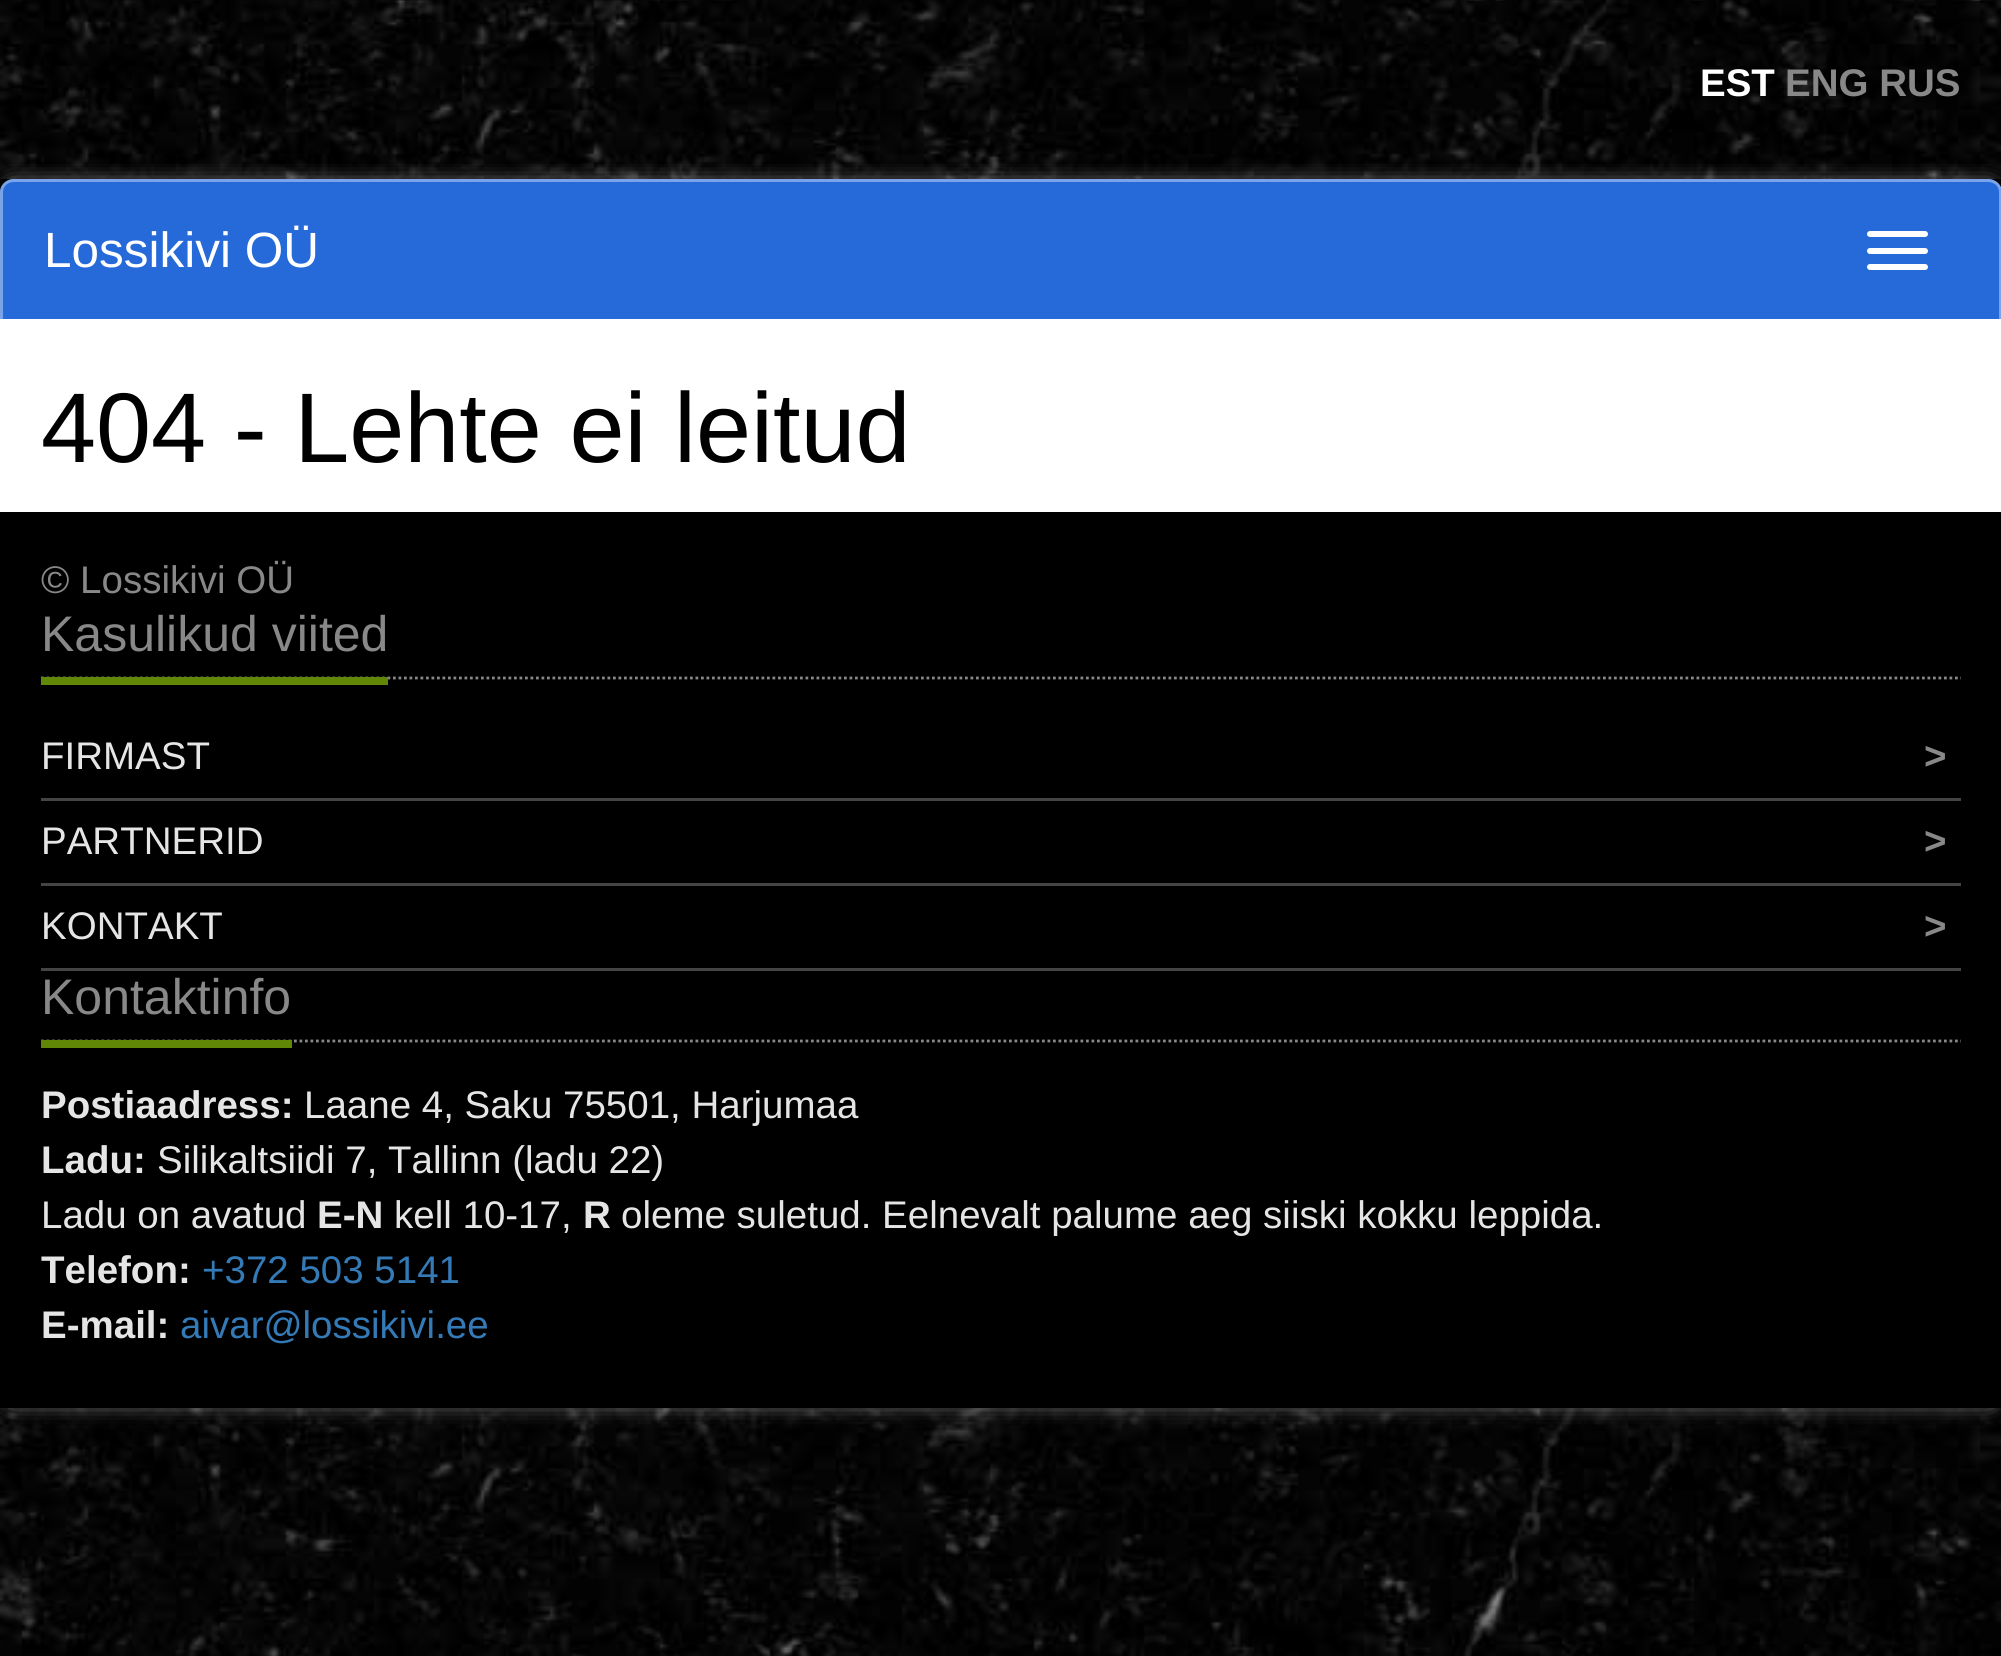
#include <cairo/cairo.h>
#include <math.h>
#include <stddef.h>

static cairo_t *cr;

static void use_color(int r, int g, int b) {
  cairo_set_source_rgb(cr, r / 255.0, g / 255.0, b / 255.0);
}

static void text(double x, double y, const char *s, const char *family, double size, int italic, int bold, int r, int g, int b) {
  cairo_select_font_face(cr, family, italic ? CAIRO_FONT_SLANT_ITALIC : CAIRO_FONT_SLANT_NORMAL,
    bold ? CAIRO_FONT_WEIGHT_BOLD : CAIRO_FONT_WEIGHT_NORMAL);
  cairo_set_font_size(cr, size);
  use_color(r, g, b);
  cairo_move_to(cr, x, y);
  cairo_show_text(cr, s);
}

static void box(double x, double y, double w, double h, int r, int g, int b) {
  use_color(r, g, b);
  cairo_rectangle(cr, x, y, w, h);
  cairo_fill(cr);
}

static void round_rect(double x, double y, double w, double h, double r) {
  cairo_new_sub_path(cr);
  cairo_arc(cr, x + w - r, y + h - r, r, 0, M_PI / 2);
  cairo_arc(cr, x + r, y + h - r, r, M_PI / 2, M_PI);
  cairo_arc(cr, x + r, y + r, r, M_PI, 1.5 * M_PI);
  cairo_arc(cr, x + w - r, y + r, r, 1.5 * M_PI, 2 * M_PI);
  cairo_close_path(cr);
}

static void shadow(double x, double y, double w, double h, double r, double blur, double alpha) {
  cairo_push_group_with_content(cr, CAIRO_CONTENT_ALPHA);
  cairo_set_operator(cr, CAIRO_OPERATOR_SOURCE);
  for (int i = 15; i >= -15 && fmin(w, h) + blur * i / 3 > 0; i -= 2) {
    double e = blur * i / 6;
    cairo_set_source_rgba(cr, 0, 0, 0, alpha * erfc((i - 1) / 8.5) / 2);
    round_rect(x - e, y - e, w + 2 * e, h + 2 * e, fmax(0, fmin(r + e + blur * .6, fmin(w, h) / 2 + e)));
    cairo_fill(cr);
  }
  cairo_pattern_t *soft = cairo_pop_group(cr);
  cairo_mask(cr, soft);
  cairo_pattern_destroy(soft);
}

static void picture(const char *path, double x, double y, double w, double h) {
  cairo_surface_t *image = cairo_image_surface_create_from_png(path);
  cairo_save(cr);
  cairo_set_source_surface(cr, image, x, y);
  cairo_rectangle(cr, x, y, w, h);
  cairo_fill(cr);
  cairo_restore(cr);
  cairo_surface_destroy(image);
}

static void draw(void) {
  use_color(255, 255, 255);
  cairo_paint(cr);
  picture("img_01.png", 0, 0, 2001, 1656);
  cairo_save(cr);
  cairo_rectangle(cr, 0, 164, 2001, 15);
  cairo_clip(cr);
  shadow(11, 190, 1980, 118, 0, 12.5, 1);
  cairo_restore(cr);
  use_color(38, 105, 217);
  cairo_new_path(cr);
  cairo_move_to(cr, 14, 179);
  cairo_line_to(cr, 1988, 179);
  cairo_curve_to(cr, 1995.5, 179, 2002, 185.5, 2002, 193);
  cairo_line_to(cr, 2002, 319);
  cairo_line_to(cr, 0, 319);
  cairo_line_to(cr, 0, 193);
  cairo_curve_to(cr, 0, 185.5, 6.5, 179, 14, 179);
  cairo_close_path(cr);
  cairo_fill(cr);
  use_color(123, 164, 232);
  cairo_set_fill_rule(cr, CAIRO_FILL_RULE_EVEN_ODD);
  cairo_new_path(cr);
  cairo_move_to(cr, 14, 179);
  cairo_line_to(cr, 1988, 179);
  cairo_curve_to(cr, 1996, 179, 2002, 185, 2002, 192);
  cairo_line_to(cr, 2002, 319);
  cairo_line_to(cr, 0, 319);
  cairo_line_to(cr, 0, 192);
  cairo_curve_to(cr, 0, 185, 6, 179, 14, 179);
  cairo_close_path(cr);
  cairo_move_to(cr, 14, 182);
  cairo_line_to(cr, 1988, 182);
  cairo_curve_to(cr, 1994, 182, 1999, 186, 1999, 192);
  cairo_line_to(cr, 1999, 319);
  cairo_line_to(cr, 3, 319);
  cairo_line_to(cr, 3, 192);
  cairo_curve_to(cr, 3, 186, 8, 182, 14, 182);
  cairo_close_path(cr);
  cairo_fill(cr);
  use_color(255, 255, 255);
  round_rect(1867, 231, 61, 6, 3);
  cairo_fill(cr);
  round_rect(1867, 248, 61, 6, 3);
  cairo_fill(cr);
  round_rect(1867, 264, 61, 6, 3);
  cairo_fill(cr);
  box(0, 319, 2001, 193, 255, 255, 255);
  use_color(255, 255, 255);
  shadow(11, 523, 1980, 874, 0, 12.5, 1);
  box(0, 512, 2001, 896, 0, 0, 0);
  cairo_new_path(cr);
  cairo_move_to(cr, 41, 678);
  cairo_line_to(cr, 1961, 678);
  use_color(136, 136, 136);
  cairo_set_line_width(cr, 2.8);
  cairo_set_dash(cr, (double[]){2.75, 2.75}, 2, 0);
  cairo_stroke(cr);
  box(41, 677, 347, 8, 96, 136, 6);
  box(41, 798, 1920, 3, 68, 68, 68);
  box(41, 883, 1920, 3, 68, 68, 68);
  box(41, 968, 1920, 3, 68, 68, 68);
  cairo_new_path(cr);
  cairo_move_to(cr, 41, 1041);
  cairo_line_to(cr, 1961, 1041);
  use_color(136, 136, 136);
  cairo_stroke(cr);
  box(41, 1040, 251, 8, 96, 136, 6);
  text(1700, 96, "EST", "Liberation Sans", 38.5, 0, 1, 255, 255, 255);
  text(1785, 96, "ENG RUS", "Liberation Sans", 38.5, 0, 1, 136, 136, 136);
  text(44, 267, "Lossikivi OÜ", "Liberation Sans", 49.5, 0, 0, 255, 255, 255);
  text(41, 462, "404 - Lehte ei leitud", "Liberation Sans", 99, 0, 0, 0, 0, 0);
  text(41, 593, "© Lossikivi OÜ", "Liberation Sans", 38.5, 0, 0, 136, 136, 136);
  text(41, 651, "Kasulikud viited", "Liberation Sans", 50, 0, 0, 136, 136, 136);
  text(41, 769, "FIRMAST", "Liberation Sans", 38.5, 0, 0, 229, 229, 229);
  text(1924, 769, ">", "Liberation Sans", 38.5, 0, 1, 136, 136, 136);
  text(41, 854, "PARTNERID", "Liberation Sans", 38.5, 0, 0, 229, 229, 229);
  text(1924, 854, ">", "Liberation Sans", 38.5, 0, 1, 136, 136, 136);
  text(41, 939, "KONTAKT", "Liberation Sans", 38.5, 0, 0, 229, 229, 229);
  text(1924, 939, ">", "Liberation Sans", 38.5, 0, 1, 136, 136, 136);
  text(41, 1014, "Kontaktinfo", "Liberation Sans", 50, 0, 0, 136, 136, 136);
  text(41, 1118, "Postiaadress:", "Liberation Sans", 38.5, 0, 1, 229, 229, 229);
  text(304, 1118, "Laane 4, Saku 75501, Harjumaa", "Liberation Sans", 38.5, 0, 0, 229, 229, 229);
  text(41, 1173, "Ladu:", "Liberation Sans", 38.5, 0, 1, 229, 229, 229);
  text(157, 1173, "Silikaltsiidi 7, Tallinn (ladu 22)", "Liberation Sans", 38.5, 0, 0, 229, 229, 229);
  text(41, 1228, "Ladu on avatud", "Liberation Sans", 38.5, 0, 0, 229, 229, 229);
  text(317, 1228, "E-N", "Liberation Sans", 38.5, 0, 1, 229, 229, 229);
  text(394, 1228, "kell 10-17,", "Liberation Sans", 38.5, 0, 0, 229, 229, 229);
  text(583, 1228, "R", "Liberation Sans", 38.5, 0, 1, 229, 229, 229);
  text(621, 1228, "oleme suletud. Eelnevalt palume aeg siiski kokku leppida.", "Liberation Sans", 38.5, 0, 0, 229, 229, 229);
  text(41, 1283, "Telefon:", "Liberation Sans", 38.5, 0, 1, 229, 229, 229);
  text(202, 1283, "+372 503 5141", "Liberation Sans", 38.5, 0, 0, 51, 122, 183);
  text(41, 1338, "E-mail:", "Liberation Sans", 38.5, 0, 1, 229, 229, 229);
  text(180, 1338, "aivar@lossikivi.ee", "Liberation Sans", 38.5, 0, 0, 51, 122, 183);
}

int main(void) {
  cairo_surface_t *surface = cairo_image_surface_create(CAIRO_FORMAT_RGB24, 2001, 1656);
  cr = cairo_create(surface);
  cairo_font_options_t *options = cairo_font_options_create();
  cairo_font_options_set_hint_metrics(options, CAIRO_HINT_METRICS_OFF);
  cairo_font_options_set_hint_style(options, CAIRO_HINT_STYLE_NONE);
  cairo_set_font_options(cr, options);
  cairo_set_miter_limit(cr, 4);
  draw();
  cairo_surface_write_to_png(surface, "out.png");
  cairo_font_options_destroy(options);
  cairo_destroy(cr);
  cairo_surface_destroy(surface);
  return 0;
}
